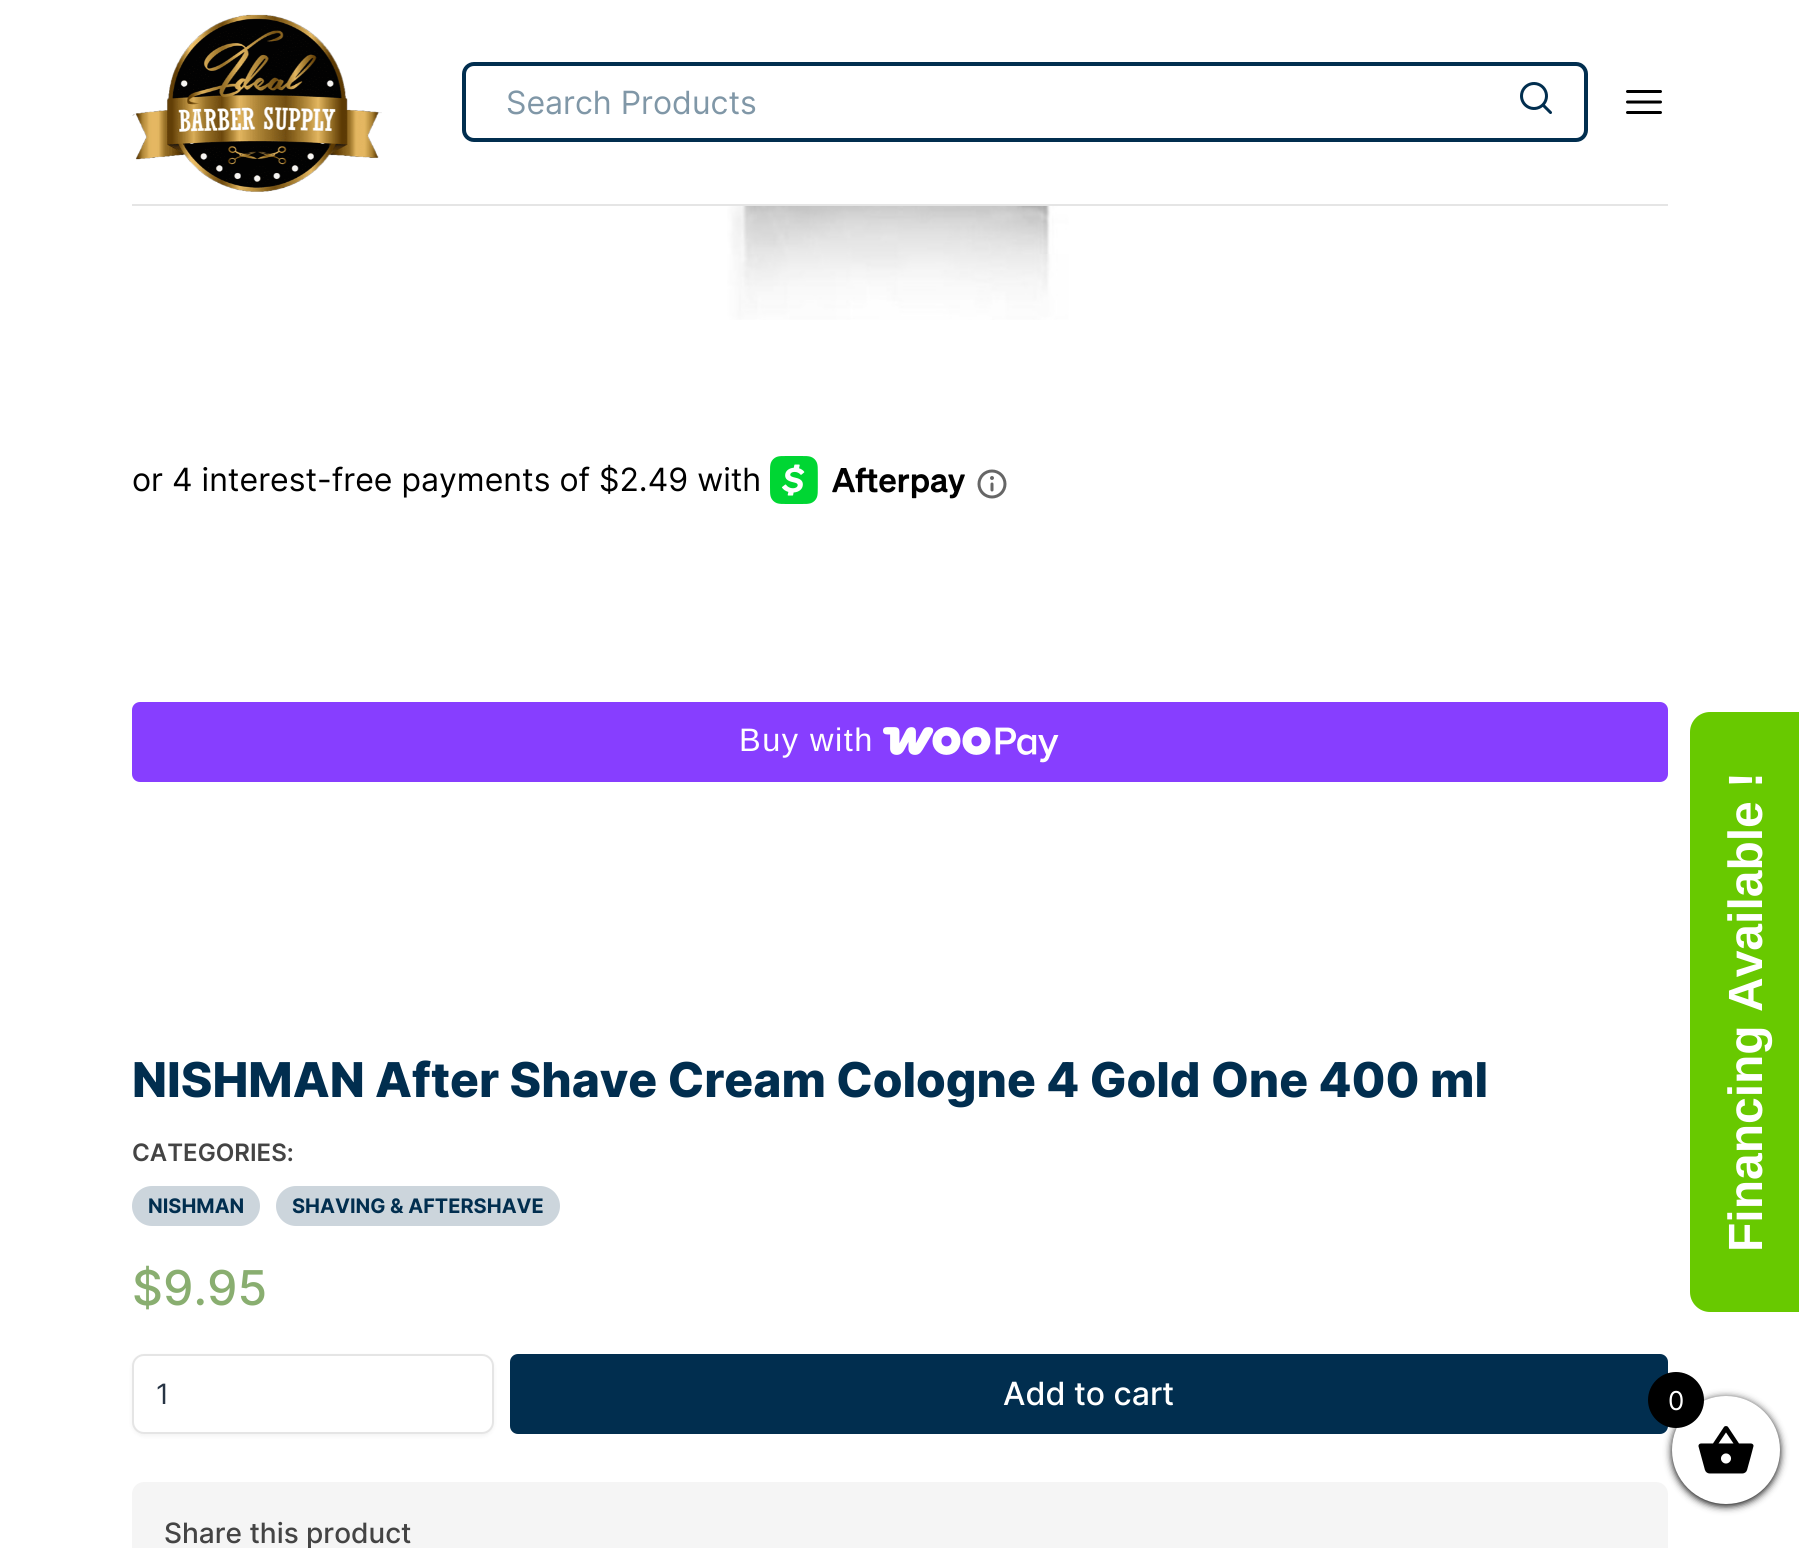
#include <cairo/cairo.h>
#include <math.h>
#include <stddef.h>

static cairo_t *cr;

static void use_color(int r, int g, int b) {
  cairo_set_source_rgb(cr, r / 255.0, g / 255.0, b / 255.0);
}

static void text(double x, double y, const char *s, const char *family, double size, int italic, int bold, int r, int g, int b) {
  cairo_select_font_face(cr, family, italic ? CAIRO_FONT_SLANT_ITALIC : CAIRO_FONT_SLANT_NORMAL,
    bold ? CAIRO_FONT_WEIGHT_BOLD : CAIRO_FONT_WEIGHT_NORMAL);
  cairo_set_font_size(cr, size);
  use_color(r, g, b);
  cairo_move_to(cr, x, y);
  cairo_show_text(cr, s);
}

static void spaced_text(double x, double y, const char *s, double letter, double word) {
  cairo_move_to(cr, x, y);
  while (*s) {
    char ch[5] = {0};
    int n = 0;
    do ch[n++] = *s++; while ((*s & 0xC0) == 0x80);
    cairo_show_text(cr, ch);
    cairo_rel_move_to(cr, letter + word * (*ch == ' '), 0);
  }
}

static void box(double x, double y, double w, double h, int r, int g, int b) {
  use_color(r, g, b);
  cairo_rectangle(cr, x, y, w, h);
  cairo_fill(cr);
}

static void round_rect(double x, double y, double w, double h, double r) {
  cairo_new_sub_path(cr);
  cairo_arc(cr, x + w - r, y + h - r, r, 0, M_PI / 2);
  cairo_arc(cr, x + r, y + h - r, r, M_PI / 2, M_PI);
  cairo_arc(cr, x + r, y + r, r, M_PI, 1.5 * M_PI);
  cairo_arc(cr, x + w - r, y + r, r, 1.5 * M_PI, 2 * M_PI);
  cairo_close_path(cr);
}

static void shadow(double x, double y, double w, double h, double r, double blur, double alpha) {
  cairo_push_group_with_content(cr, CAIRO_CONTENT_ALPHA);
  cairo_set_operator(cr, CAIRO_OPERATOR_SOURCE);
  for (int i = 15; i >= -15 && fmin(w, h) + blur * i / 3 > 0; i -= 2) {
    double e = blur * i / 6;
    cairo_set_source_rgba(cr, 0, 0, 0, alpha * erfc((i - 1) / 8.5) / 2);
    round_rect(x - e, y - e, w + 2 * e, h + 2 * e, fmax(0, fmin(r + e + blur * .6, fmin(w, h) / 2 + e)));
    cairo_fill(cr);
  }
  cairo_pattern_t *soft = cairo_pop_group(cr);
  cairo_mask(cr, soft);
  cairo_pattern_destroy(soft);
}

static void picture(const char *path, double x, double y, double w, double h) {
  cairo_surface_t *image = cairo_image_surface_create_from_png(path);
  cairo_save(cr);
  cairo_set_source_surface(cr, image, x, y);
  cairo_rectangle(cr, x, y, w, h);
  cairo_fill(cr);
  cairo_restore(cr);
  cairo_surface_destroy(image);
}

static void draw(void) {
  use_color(255, 255, 255);
  cairo_paint(cr);
  box(132, 204, 1536, 2, 229, 229, 229);
  picture("img_01.png", 132, 14, 250, 178);
  round_rect(464, 64, 1122, 76, 10);
  use_color(1, 46, 79);
  cairo_set_line_width(cr, 4);
  cairo_stroke(cr);
  picture("img_02.png", 1520, 82, 32, 32);
  cairo_new_path(cr);
  cairo_move_to(cr, 1627.5, 91.5);
  cairo_line_to(cr, 1660.5, 91.5);
  cairo_move_to(cr, 1627.5, 102);
  cairo_line_to(cr, 1660.5, 102);
  cairo_move_to(cr, 1627.5, 112.5);
  cairo_line_to(cr, 1660.5, 112.5);
  use_color(0, 0, 0);
  cairo_set_line_width(cr, 3);
  cairo_set_line_cap(cr, CAIRO_LINE_CAP_ROUND);
  cairo_set_line_join(cr, CAIRO_LINE_JOIN_ROUND);
  cairo_stroke(cr);
  picture("img_03.png", 727, 206, 342, 114);
  picture("img_04.png", 770, 456, 195, 48);
  picture("img_05.png", 977, 469, 30, 30);
  use_color(135, 62, 255);
  round_rect(132, 702, 1536, 80, 8);
  cairo_fill(cr);
  picture("img_06.png", 883, 727, 176, 36);
  use_color(204, 213, 220);
  round_rect(132, 1186, 128, 40, 20);
  cairo_fill(cr);
  round_rect(276, 1186, 284, 40, 20);
  cairo_fill(cr);
  use_color(0, 0, 0);
  shadow(132, 1356, 362, 80, 12, 2, 0.05);
  use_color(255, 255, 255);
  round_rect(133, 1355, 360, 78, 11);
  cairo_fill_preserve(cr);
  use_color(229, 229, 229);
  cairo_set_line_width(cr, 2);
  cairo_set_line_cap(cr, CAIRO_LINE_CAP_BUTT);
  cairo_set_line_join(cr, CAIRO_LINE_JOIN_MITER);
  cairo_stroke(cr);
  use_color(1, 46, 79);
  round_rect(510, 1354, 1158, 80, 8);
  cairo_fill(cr);
  use_color(245, 245, 245);
  round_rect(132, 1482, 1536, 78, 12);
  cairo_fill(cr);
  use_color(104, 201, 0);
  cairo_new_path(cr);
  cairo_move_to(cr, 1690, 1292);
  cairo_line_to(cr, 1690, 732);
  cairo_curve_to(cr, 1690, 721, 1699, 712, 1710, 712);
  cairo_line_to(cr, 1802, 712);
  cairo_line_to(cr, 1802, 1312);
  cairo_line_to(cr, 1710, 1312);
  cairo_curve_to(cr, 1699, 1312, 1690, 1303, 1690, 1292);
  cairo_close_path(cr);
  cairo_fill(cr);
  use_color(0, 0, 0);
  shadow(1672, 1398, 108, 108, 54, 4, 1);
  use_color(255, 255, 255);
  cairo_arc(cr, 1726, 1450, 54, 0, 2 * M_PI);
  cairo_fill(cr);
  use_color(0, 0, 0);
  cairo_arc(cr, 1676, 1400, 28, 0, 2 * M_PI);
  cairo_fill(cr);
  picture("img_07.png", 1698, 1426, 56, 48);
  text(506, 114, "Search Products", "Inter", 32, 0, 0, 128, 151, 167);
  text(132, 491, "or 4 interest-free payments of $2.49 with", "Inter", 32, 0, 0, 0, 0, 0);
  cairo_select_font_face(cr, "Liberation Sans", CAIRO_FONT_SLANT_NORMAL, CAIRO_FONT_WEIGHT_NORMAL);
  cairo_set_font_size(cr, 32.5);
  use_color(255, 255, 255);
  spaced_text(739, 751, "Buy with", 1.5, 0);
  text(132, 1097, "NISHMAN After Shave Cream Cologne 4 Gold One 400 ml", "Inter ExtraBold", 48, 0, 0, 1, 46, 79);
  text(132, 1161, "CATEGORIES:", "Inter SemiBold", 24, 0, 0, 68, 68, 68);
  text(148, 1213, "NISHMAN", "Inter", 20, 0, 1, 1, 46, 79);
  text(292, 1213, "SHAVING & AFTERSHAVE", "Inter", 20, 0, 1, 1, 46, 79);
  text(132, 1305, "$9.95", "Inter Medium", 48, 0, 0, 137, 174, 112);
  text(156, 1404, "1", "Inter", 28, 0, 0, 39, 52, 68);
  text(1003, 1405, "Add to cart", "Inter Medium", 32, 0, 0, 255, 255, 255);
  text(164, 1543, "Share this product", "Inter Medium", 28, 0, 0, 68, 68, 68);
  cairo_save(cr);
  cairo_translate(cr, 1762, 1252);
  cairo_rotate(cr, -90 * M_PI / 180);
  text(0, 0, "Financing Available !", "Liberation Sans", 48, 0, 1, 255, 255, 255);
  cairo_restore(cr);
  text(1668, 1410, "0", "Inter", 26, 0, 0, 255, 255, 255);
}

int main(void) {
  cairo_surface_t *surface = cairo_image_surface_create(CAIRO_FORMAT_RGB24, 1799, 1548);
  cr = cairo_create(surface);
  cairo_font_options_t *options = cairo_font_options_create();
  cairo_font_options_set_hint_metrics(options, CAIRO_HINT_METRICS_OFF);
  cairo_font_options_set_hint_style(options, CAIRO_HINT_STYLE_NONE);
  cairo_set_font_options(cr, options);
  cairo_set_miter_limit(cr, 4);
  draw();
  cairo_surface_write_to_png(surface, "out.png");
  cairo_font_options_destroy(options);
  cairo_destroy(cr);
  cairo_surface_destroy(surface);
  return 0;
}
